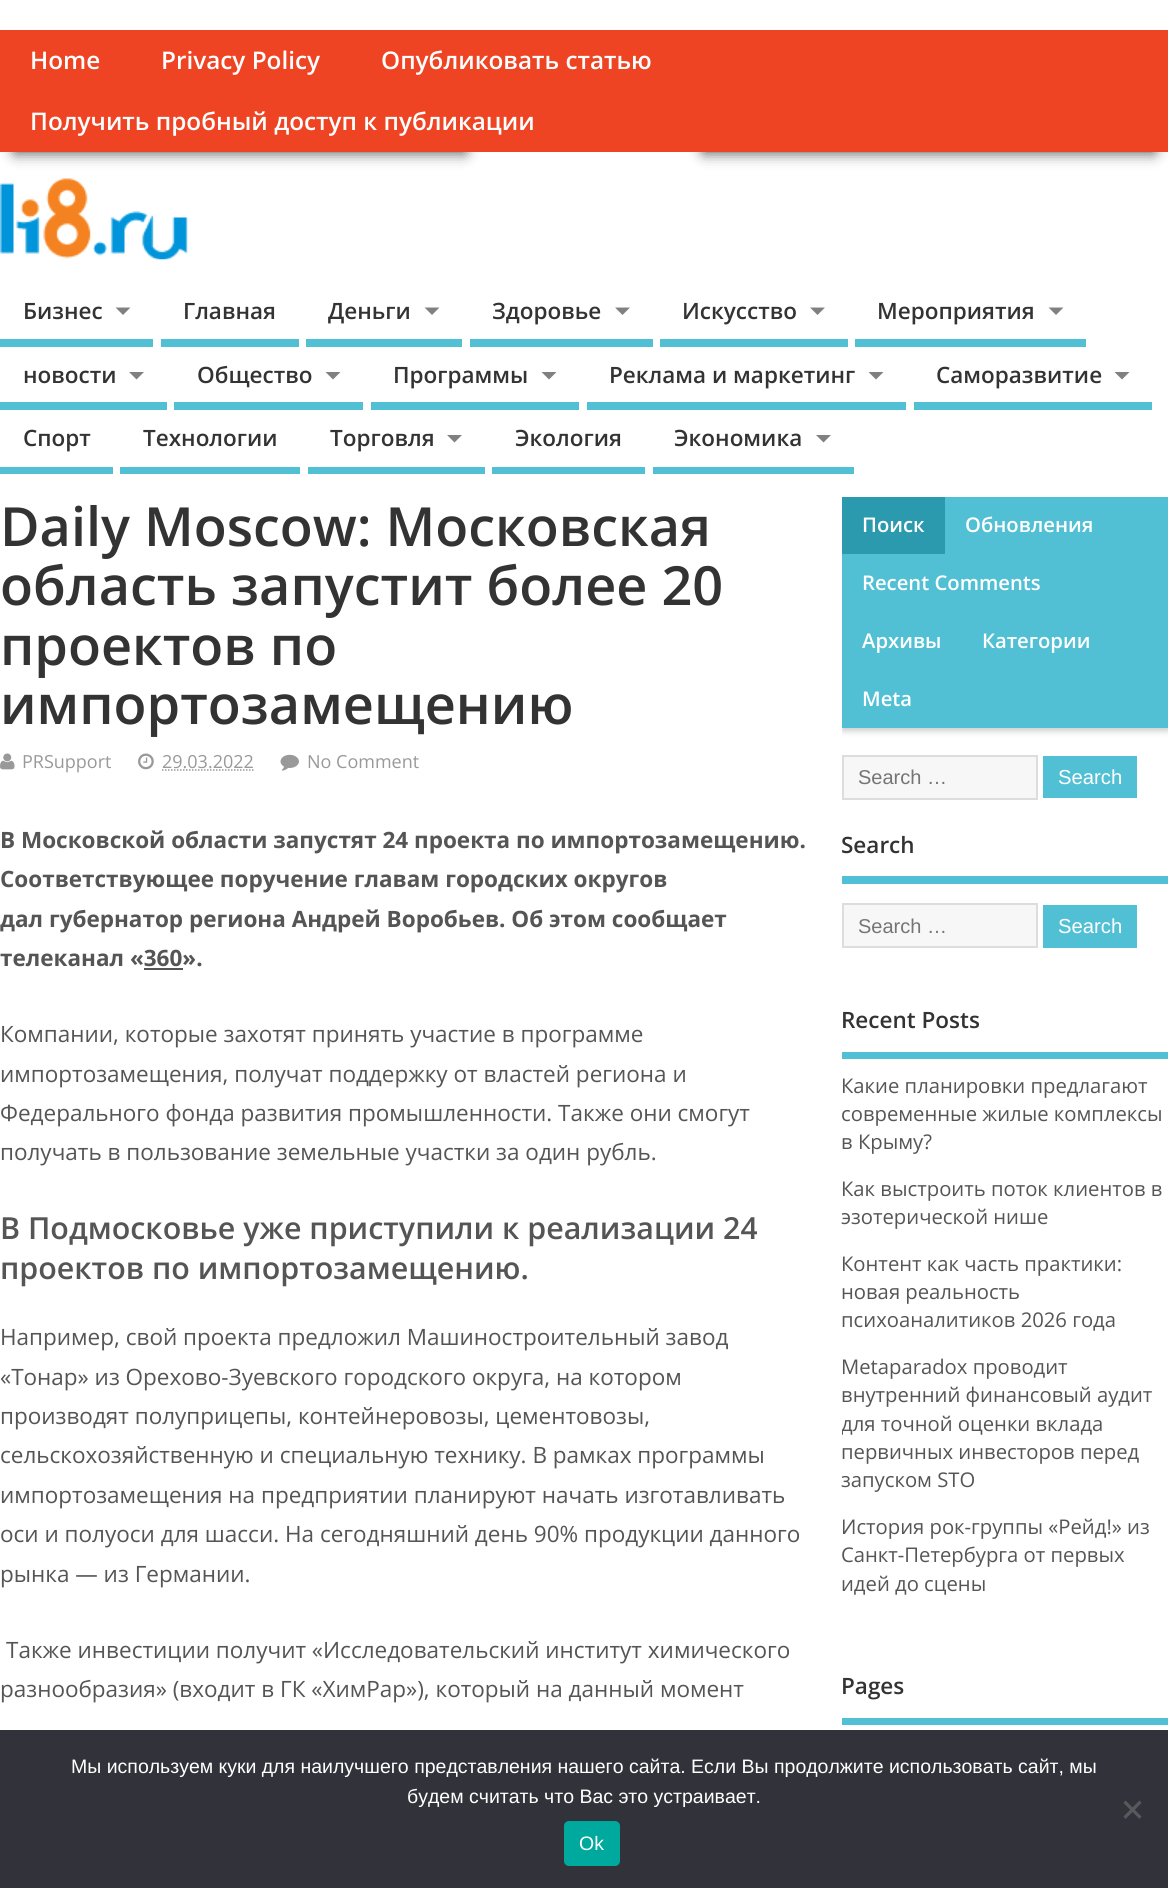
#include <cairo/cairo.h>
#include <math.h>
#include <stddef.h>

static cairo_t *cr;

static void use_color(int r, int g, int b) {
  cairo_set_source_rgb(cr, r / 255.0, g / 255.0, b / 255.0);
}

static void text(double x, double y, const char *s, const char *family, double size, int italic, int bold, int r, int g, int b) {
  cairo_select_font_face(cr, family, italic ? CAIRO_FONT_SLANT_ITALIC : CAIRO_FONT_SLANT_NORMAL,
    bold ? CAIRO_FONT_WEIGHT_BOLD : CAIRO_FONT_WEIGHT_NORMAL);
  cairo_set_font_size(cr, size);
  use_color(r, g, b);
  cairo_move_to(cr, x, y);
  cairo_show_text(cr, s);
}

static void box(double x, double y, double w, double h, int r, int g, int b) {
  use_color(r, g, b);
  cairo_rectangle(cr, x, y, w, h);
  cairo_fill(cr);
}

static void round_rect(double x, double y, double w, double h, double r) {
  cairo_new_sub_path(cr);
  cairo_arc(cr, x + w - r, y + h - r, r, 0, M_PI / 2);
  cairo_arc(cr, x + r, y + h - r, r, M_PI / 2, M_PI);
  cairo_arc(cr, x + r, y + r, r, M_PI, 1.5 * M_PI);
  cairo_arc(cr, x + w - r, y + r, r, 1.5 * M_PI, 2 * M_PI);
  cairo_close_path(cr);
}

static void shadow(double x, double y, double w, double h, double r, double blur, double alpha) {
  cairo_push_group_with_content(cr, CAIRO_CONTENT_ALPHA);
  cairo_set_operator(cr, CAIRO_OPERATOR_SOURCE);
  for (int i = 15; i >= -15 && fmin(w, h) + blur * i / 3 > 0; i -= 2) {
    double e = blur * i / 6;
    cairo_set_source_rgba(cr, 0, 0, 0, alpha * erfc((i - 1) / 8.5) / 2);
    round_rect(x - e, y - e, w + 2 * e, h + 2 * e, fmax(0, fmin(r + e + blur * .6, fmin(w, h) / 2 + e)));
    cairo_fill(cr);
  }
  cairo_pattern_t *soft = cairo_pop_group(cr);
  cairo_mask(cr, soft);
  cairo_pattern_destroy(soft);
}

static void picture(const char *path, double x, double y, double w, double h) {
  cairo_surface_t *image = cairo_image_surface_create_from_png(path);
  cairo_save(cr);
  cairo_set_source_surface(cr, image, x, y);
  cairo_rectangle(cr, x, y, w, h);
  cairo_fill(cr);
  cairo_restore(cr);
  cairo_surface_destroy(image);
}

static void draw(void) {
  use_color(255, 255, 255);
  cairo_paint(cr);
  use_color(0, 0, 0);
  shadow(15, 128, 450, 24, 0, 7.5, 0.75);
  shadow(704, 128, 450, 24, 0, 7.5, 0.75);
  box(0, 30, 1168, 122, 239, 68, 35);
  picture("img_01.png", 0, 178, 188, 82);
  box(0, 339, 153, 8, 82, 192, 212);
  use_color(128, 128, 128);
  cairo_new_path(cr);
  cairo_move_to(cr, 115.5, 307.5);
  cairo_line_to(cr, 130.5, 307.5);
  cairo_line_to(cr, 123, 315);
  cairo_close_path(cr);
  cairo_fill(cr);
  box(161, 339, 138, 8, 82, 192, 212);
  box(306, 339, 156, 8, 82, 192, 212);
  use_color(128, 128, 128);
  cairo_new_path(cr);
  cairo_move_to(cr, 424.5, 307.5);
  cairo_line_to(cr, 439.5, 307.5);
  cairo_line_to(cr, 432, 315);
  cairo_close_path(cr);
  cairo_fill(cr);
  box(470, 339, 183, 8, 82, 192, 212);
  use_color(128, 128, 128);
  cairo_new_path(cr);
  cairo_move_to(cr, 615, 307.5);
  cairo_line_to(cr, 630, 307.5);
  cairo_line_to(cr, 622.5, 315);
  cairo_close_path(cr);
  cairo_fill(cr);
  box(660, 339, 188, 8, 82, 192, 212);
  use_color(128, 128, 128);
  cairo_new_path(cr);
  cairo_move_to(cr, 810, 307.5);
  cairo_line_to(cr, 825, 307.5);
  cairo_line_to(cr, 817.5, 315);
  cairo_close_path(cr);
  cairo_fill(cr);
  box(855, 339, 231, 8, 82, 192, 212);
  use_color(128, 128, 128);
  cairo_new_path(cr);
  cairo_move_to(cr, 1048.5, 307.5);
  cairo_line_to(cr, 1063.5, 307.5);
  cairo_line_to(cr, 1056, 315);
  cairo_close_path(cr);
  cairo_fill(cr);
  box(0, 402, 167, 8, 82, 192, 212);
  use_color(128, 128, 128);
  cairo_new_path(cr);
  cairo_move_to(cr, 129, 372);
  cairo_line_to(cr, 144, 372);
  cairo_line_to(cr, 136.5, 379.5);
  cairo_close_path(cr);
  cairo_fill(cr);
  box(174, 402, 189, 8, 82, 192, 212);
  use_color(128, 128, 128);
  cairo_new_path(cr);
  cairo_move_to(cr, 325.5, 372);
  cairo_line_to(cr, 340.5, 372);
  cairo_line_to(cr, 333, 379.5);
  cairo_close_path(cr);
  cairo_fill(cr);
  box(371, 402, 208, 8, 82, 192, 212);
  use_color(128, 128, 128);
  cairo_new_path(cr);
  cairo_move_to(cr, 541.5, 372);
  cairo_line_to(cr, 556.5, 372);
  cairo_line_to(cr, 549, 379.5);
  cairo_close_path(cr);
  cairo_fill(cr);
  box(587, 402, 319, 8, 82, 192, 212);
  use_color(128, 128, 128);
  cairo_new_path(cr);
  cairo_move_to(cr, 868.5, 372);
  cairo_line_to(cr, 883.5, 372);
  cairo_line_to(cr, 876, 379.5);
  cairo_close_path(cr);
  cairo_fill(cr);
  box(914, 402, 238, 8, 82, 192, 212);
  use_color(128, 128, 128);
  cairo_new_path(cr);
  cairo_move_to(cr, 1114.5, 372);
  cairo_line_to(cr, 1129.5, 372);
  cairo_line_to(cr, 1122, 379.5);
  cairo_close_path(cr);
  cairo_fill(cr);
  box(0, 467, 113, 7, 82, 192, 212);
  box(120, 467, 180, 7, 82, 192, 212);
  box(308, 467, 177, 7, 82, 192, 212);
  use_color(128, 128, 128);
  cairo_new_path(cr);
  cairo_move_to(cr, 447, 435);
  cairo_line_to(cr, 462, 435);
  cairo_line_to(cr, 454.5, 442.5);
  cairo_close_path(cr);
  cairo_fill(cr);
  box(492, 467, 153, 7, 82, 192, 212);
  box(653, 467, 201, 7, 82, 192, 212);
  use_color(128, 128, 128);
  cairo_new_path(cr);
  cairo_move_to(cr, 816, 435);
  cairo_line_to(cr, 831, 435);
  cairo_line_to(cr, 823.5, 442.5);
  cairo_close_path(cr);
  cairo_fill(cr);
  picture("img_02.png", 0, 753, 15, 17);
  picture("img_03.png", 138, 753, 16, 17);
  cairo_new_path(cr);
  cairo_move_to(cr, 162, 770);
  cairo_line_to(cr, 254, 770);
  use_color(153, 153, 153);
  cairo_set_line_width(cr, 1.5);
  cairo_set_dash(cr, (double[]){1.5, 1.5}, 2, 0);
  cairo_stroke(cr);
  picture("img_04.png", 280, 754, 19, 17);
  box(144, 968, 39, 2, 85, 85, 85);
  cairo_save(cr);
  cairo_rectangle(cr, 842, 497, 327, 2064);
  cairo_clip(cr);
  use_color(204, 204, 204);
  shadow(842, 500, 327, 231, 0, 3, 1);
  cairo_restore(cr);
  box(842, 497, 326, 231, 82, 192, 212);
  box(842, 497, 103, 57, 43, 154, 174);
  use_color(247, 247, 247);
  cairo_rectangle(cr, 843, 756, 194, 43);
  cairo_fill_preserve(cr);
  use_color(221, 221, 221);
  cairo_set_line_width(cr, 2);
  cairo_set_dash(cr, NULL, 0, 0);
  cairo_stroke(cr);
  box(1043, 756, 94, 42, 82, 192, 212);
  box(842, 876, 326, 8, 82, 192, 212);
  use_color(247, 247, 247);
  cairo_rectangle(cr, 843, 904, 194, 43);
  cairo_fill_preserve(cr);
  use_color(221, 221, 221);
  cairo_stroke(cr);
  box(1043, 905, 94, 43, 82, 192, 212);
  box(842, 1052, 326, 7, 82, 192, 212);
  box(842, 1718, 326, 7, 82, 192, 212);
  box(0, 1730, 1168, 158, 50, 50, 58);
  use_color(89, 89, 93);
  cairo_new_path(cr);
  cairo_move_to(cr, 1139.5, 1800.5);
  cairo_line_to(cr, 1141.5, 1803);
  cairo_line_to(cr, 1125.5, 1819);
  cairo_line_to(cr, 1123.5, 1816.5);
  cairo_close_path(cr);
  cairo_fill(cr);
  cairo_new_path(cr);
  cairo_move_to(cr, 1123.5, 1803);
  cairo_line_to(cr, 1125.5, 1800.5);
  cairo_line_to(cr, 1141.5, 1816.5);
  cairo_line_to(cr, 1139.5, 1819);
  cairo_close_path(cr);
  cairo_fill(cr);
  use_color(0, 169, 157);
  round_rect(564, 1821, 56, 45, 5);
  cairo_fill(cr);
  text(30, 69, "Home", "Open Sans SemiBold", 24.3, 0, 0, 255, 255, 255);
  text(161, 69, "Privacy Policy", "Open Sans SemiBold", 24.3, 0, 0, 255, 255, 255);
  text(381, 69, "Опубликовать статью", "Open Sans SemiBold", 24.3, 0, 0, 255, 255, 255);
  text(30, 130, "Получить пробный доступ к публикации", "Open Sans SemiBold", 24.3, 0, 0, 255, 255, 255);
  text(23, 319, "Бизнес", "Open Sans SemiBold", 22.5, 0, 0, 51, 51, 51);
  text(183, 319, "Главная", "Open Sans SemiBold", 22.5, 0, 0, 51, 51, 51);
  text(328, 319, "Деньги", "Open Sans SemiBold", 22.5, 0, 0, 51, 51, 51);
  text(492, 319, "Здоровье", "Open Sans SemiBold", 22.5, 0, 0, 51, 51, 51);
  text(682, 319, "Искусство", "Open Sans SemiBold", 22.5, 0, 0, 51, 51, 51);
  text(877, 319, "Мероприятия", "Open Sans SemiBold", 22.5, 0, 0, 51, 51, 51);
  text(23, 383, "новости", "Open Sans SemiBold", 22.5, 0, 0, 51, 51, 51);
  text(197, 383, "Общество", "Open Sans SemiBold", 22.5, 0, 0, 51, 51, 51);
  text(393, 383, "Программы", "Open Sans SemiBold", 22.5, 0, 0, 51, 51, 51);
  text(609, 383, "Реклама и маркетинг", "Open Sans SemiBold", 22.5, 0, 0, 51, 51, 51);
  text(936, 383, "Саморазвитие", "Open Sans SemiBold", 22.5, 0, 0, 51, 51, 51);
  text(23, 446, "Спорт", "Open Sans SemiBold", 22.5, 0, 0, 51, 51, 51);
  text(143, 446, "Технологии", "Open Sans SemiBold", 22.5, 0, 0, 51, 51, 51);
  text(330, 446, "Торговля", "Open Sans SemiBold", 22.5, 0, 0, 51, 51, 51);
  text(515, 446, "Экология", "Open Sans SemiBold", 22.5, 0, 0, 51, 51, 51);
  text(674, 446, "Экономика", "Open Sans SemiBold", 22.5, 0, 0, 51, 51, 51);
  text(0, 546, "Daily Moscow: Московская", "Open Sans SemiBold", 54, 0, 0, 51, 51, 51);
  text(0, 605, "область запустит более 20", "Open Sans SemiBold", 54, 0, 0, 51, 51, 51);
  text(0, 665, "проектов по", "Open Sans SemiBold", 54, 0, 0, 51, 51, 51);
  text(0, 724, "импортозамещению", "Open Sans SemiBold", 54, 0, 0, 51, 51, 51);
  text(22, 768, "PRSupport", "Open Sans", 18, 0, 0, 153, 153, 153);
  text(162, 768, "29.03.2022", "Open Sans", 18, 0, 0, 153, 153, 153);
  text(307, 768, "No Comment", "Open Sans", 18, 0, 0, 153, 153, 153);
  text(0, 848, "В Московской области запустят 24 проекта по импортозамещению.", "Open Sans", 22.5, 0, 1, 85, 85, 85);
  text(0, 887, "Соответствующее поручение главам городских округов", "Open Sans", 22.5, 0, 1, 85, 85, 85);
  text(0, 927, "дал губернатор региона Андрей Воробьев. Об этом сообщает", "Open Sans", 22.5, 0, 1, 85, 85, 85);
  text(0, 966, "телеканал «360».", "Open Sans", 22.5, 0, 1, 85, 85, 85);
  text(0, 1042, "Компании, которые захотят принять участие в программе", "Open Sans", 22.5, 0, 0, 85, 85, 85);
  text(0, 1082, "импортозамещения, получат поддержку от властей региона и", "Open Sans", 22.5, 0, 0, 85, 85, 85);
  text(0, 1121, "Федерального фонда развития промышленности. Также они смогут", "Open Sans", 22.5, 0, 0, 85, 85, 85);
  text(0, 1160, "получать в пользование земельные участки за один рубль.", "Open Sans", 22.5, 0, 0, 85, 85, 85);
  text(0, 1239, "В Подмосковье уже приступили к реализации 24", "Open Sans SemiBold", 30.4, 0, 0, 85, 85, 85);
  text(0, 1279, "проектов по импортозамещению.", "Open Sans SemiBold", 30.4, 0, 0, 85, 85, 85);
  text(0, 1345, "Например, свой проекта предложил Машиностроительный завод", "Open Sans", 22.5, 0, 0, 85, 85, 85);
  text(0, 1385, "«Тонар» из Орехово-Зуевского городского округа, на котором", "Open Sans", 22.5, 0, 0, 85, 85, 85);
  text(0, 1424, "производят полуприцепы, контейнеровозы, цементовозы,", "Open Sans", 22.5, 0, 0, 85, 85, 85);
  text(0, 1463, "сельскохозяйственную и специальную технику. В рамках программы", "Open Sans", 22.5, 0, 0, 85, 85, 85);
  text(0, 1503, "импортозамещения на предприятии планируют начать изготавливать", "Open Sans", 22.5, 0, 0, 85, 85, 85);
  text(0, 1542, "оси и полуоси для шасси. На сегодняшний день 90% продукции данного", "Open Sans", 22.5, 0, 0, 85, 85, 85);
  text(0, 1582, "рынка — из Германии.", "Open Sans", 22.5, 0, 0, 85, 85, 85);
  text(6, 1658, "Также инвестиции получит «Исследовательский институт химического", "Open Sans", 22.5, 0, 0, 85, 85, 85);
  text(0, 1697, "разнообразия» (входит в ГК «ХимРар»), который на данный момент", "Open Sans", 22.5, 0, 0, 85, 85, 85);
  text(862, 532, "Поиск", "Open Sans SemiBold", 20.25, 0, 0, 255, 255, 255);
  text(965, 532, "Обновления", "Open Sans SemiBold", 20.25, 0, 0, 255, 255, 255);
  text(862, 590, "Recent Comments", "Open Sans SemiBold", 20.25, 0, 0, 255, 255, 255);
  text(862, 648, "Архивы", "Open Sans SemiBold", 20.25, 0, 0, 255, 255, 255);
  text(982, 648, "Категории", "Open Sans SemiBold", 20.25, 0, 0, 255, 255, 255);
  text(862, 706, "Meta", "Open Sans SemiBold", 20.25, 0, 0, 255, 255, 255);
  text(858, 784, "Search …", "Liberation Sans", 20, 0, 0, 117, 117, 117);
  text(1058, 784, "Search", "Liberation Sans", 20.25, 0, 0, 255, 255, 255);
  text(841, 853, "Search", "Open Sans SemiBold", 22.5, 0, 0, 51, 51, 51);
  text(858, 933, "Search …", "Liberation Sans", 20, 0, 0, 117, 117, 117);
  text(1058, 933, "Search", "Liberation Sans", 20.25, 0, 0, 255, 255, 255);
  text(841, 1028, "Recent Posts", "Open Sans SemiBold", 22.5, 0, 0, 51, 51, 51);
  text(841, 1093, "Какие планировки предлагают", "Open Sans", 20.25, 0, 0, 85, 85, 85);
  text(841, 1121, "современные жилые комплексы", "Open Sans", 20.25, 0, 0, 85, 85, 85);
  text(841, 1149, "в Крыму?", "Open Sans", 20.25, 0, 0, 85, 85, 85);
  text(841, 1196, "Как выстроить поток клиентов в", "Open Sans", 20.25, 0, 0, 85, 85, 85);
  text(841, 1224, "эзотерической нише", "Open Sans", 20.25, 0, 0, 85, 85, 85);
  text(841, 1271, "Контент как часть практики:", "Open Sans", 20.25, 0, 0, 85, 85, 85);
  text(841, 1299, "новая реальность", "Open Sans", 20.25, 0, 0, 85, 85, 85);
  text(841, 1327, "психоаналитиков 2026 года", "Open Sans", 20.25, 0, 0, 85, 85, 85);
  text(841, 1374, "Metaparadox проводит", "Open Sans", 20.25, 0, 0, 85, 85, 85);
  text(841, 1402, "внутренний финансовый аудит", "Open Sans", 20.25, 0, 0, 85, 85, 85);
  cairo_save(cr);
  cairo_rectangle(cr, 842, 1070, 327, 544);
  cairo_clip(cr);
  text(841, 1431, "для точной оценки вклада", "Open Sans", 20.25, 0, 0, 85, 85, 85);
  cairo_restore(cr);
  text(841, 1459, "первичных инвесторов перед", "Open Sans", 20.25, 0, 0, 85, 85, 85);
  text(841, 1487, "запуском STO", "Open Sans", 20.25, 0, 0, 85, 85, 85);
  text(841, 1534, "История рок-группы «Рейд!» из", "Open Sans", 20.25, 0, 0, 85, 85, 85);
  text(841, 1562, "Санкт-Петербурга от первых", "Open Sans", 20.25, 0, 0, 85, 85, 85);
  text(841, 1591, "идей до сцены", "Open Sans", 20.25, 0, 0, 85, 85, 85);
  text(841, 1694, "Pages", "Open Sans SemiBold", 22.5, 0, 0, 51, 51, 51);
  text(71, 1773, "Мы используем куки для наилучшего представления нашего сайта. Если Вы продолжите использовать сайт, мы", "Liberation Sans", 19.5, 0, 0, 255, 255, 255);
  text(407, 1803, "будем считать что Вас это устраивает.", "Liberation Sans", 19.5, 0, 0, 255, 255, 255);
  text(579, 1850, "Ok", "Liberation Sans", 19.5, 0, 0, 255, 255, 255);
}

int main(void) {
  cairo_surface_t *surface = cairo_image_surface_create(CAIRO_FORMAT_RGB24, 1168, 1888);
  cr = cairo_create(surface);
  cairo_font_options_t *options = cairo_font_options_create();
  cairo_font_options_set_hint_metrics(options, CAIRO_HINT_METRICS_OFF);
  cairo_font_options_set_hint_style(options, CAIRO_HINT_STYLE_NONE);
  cairo_set_font_options(cr, options);
  cairo_set_miter_limit(cr, 4);
  draw();
  cairo_surface_write_to_png(surface, "out.png");
  cairo_font_options_destroy(options);
  cairo_destroy(cr);
  cairo_surface_destroy(surface);
  return 0;
}
